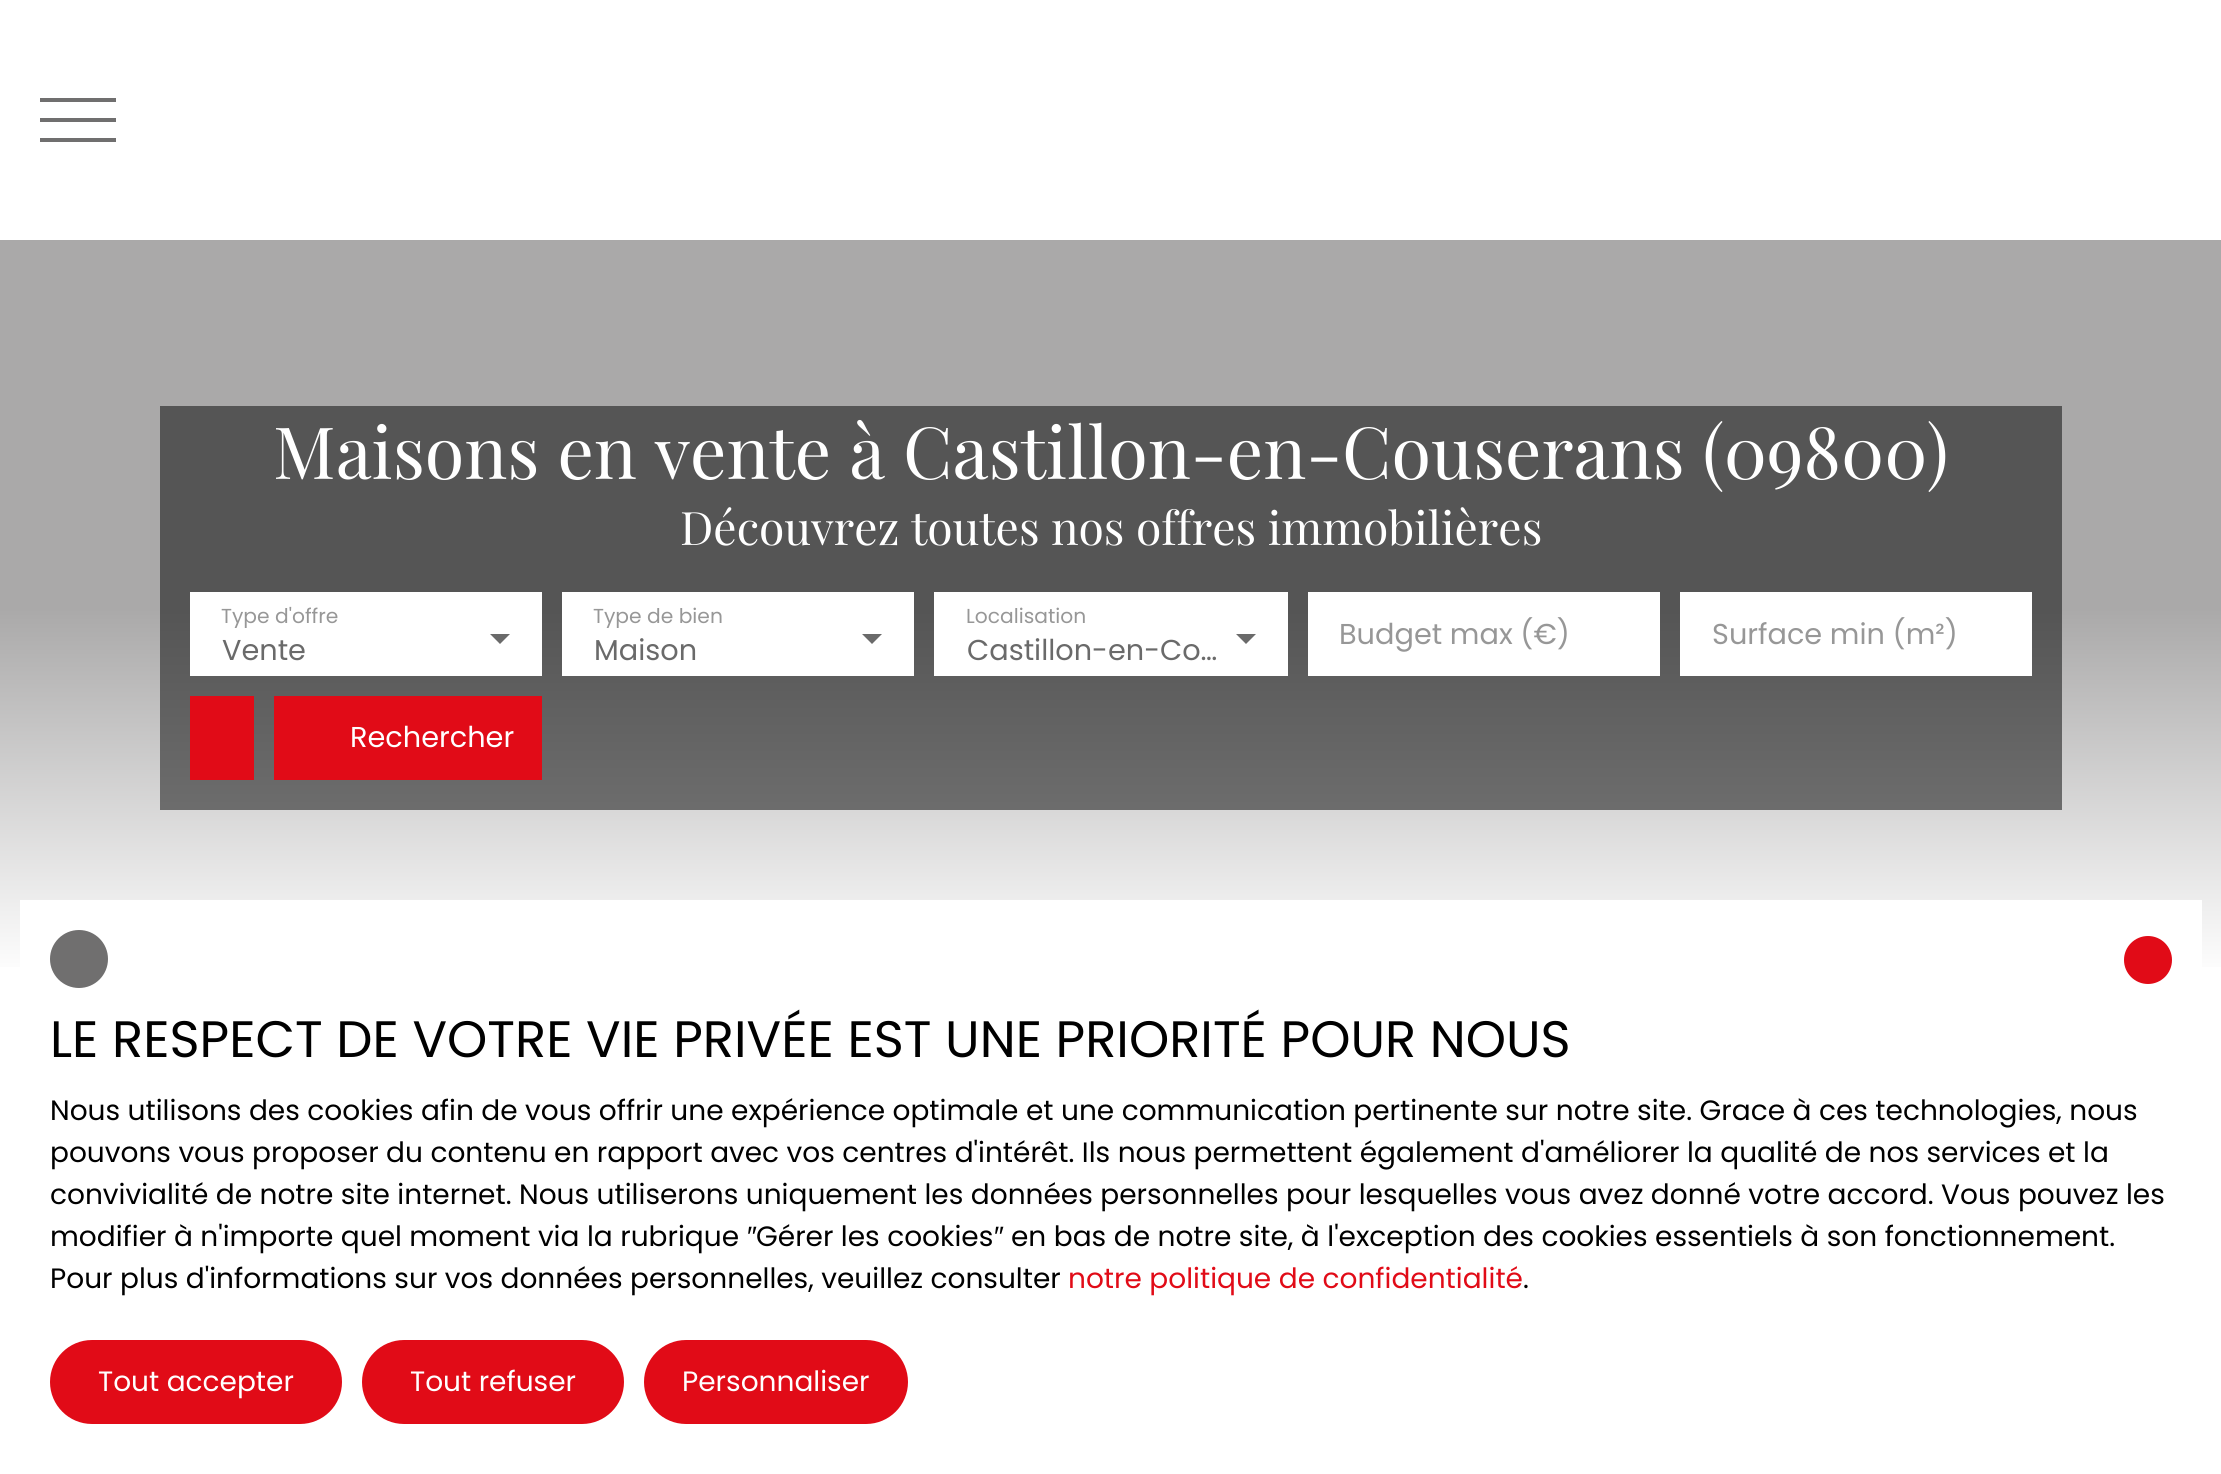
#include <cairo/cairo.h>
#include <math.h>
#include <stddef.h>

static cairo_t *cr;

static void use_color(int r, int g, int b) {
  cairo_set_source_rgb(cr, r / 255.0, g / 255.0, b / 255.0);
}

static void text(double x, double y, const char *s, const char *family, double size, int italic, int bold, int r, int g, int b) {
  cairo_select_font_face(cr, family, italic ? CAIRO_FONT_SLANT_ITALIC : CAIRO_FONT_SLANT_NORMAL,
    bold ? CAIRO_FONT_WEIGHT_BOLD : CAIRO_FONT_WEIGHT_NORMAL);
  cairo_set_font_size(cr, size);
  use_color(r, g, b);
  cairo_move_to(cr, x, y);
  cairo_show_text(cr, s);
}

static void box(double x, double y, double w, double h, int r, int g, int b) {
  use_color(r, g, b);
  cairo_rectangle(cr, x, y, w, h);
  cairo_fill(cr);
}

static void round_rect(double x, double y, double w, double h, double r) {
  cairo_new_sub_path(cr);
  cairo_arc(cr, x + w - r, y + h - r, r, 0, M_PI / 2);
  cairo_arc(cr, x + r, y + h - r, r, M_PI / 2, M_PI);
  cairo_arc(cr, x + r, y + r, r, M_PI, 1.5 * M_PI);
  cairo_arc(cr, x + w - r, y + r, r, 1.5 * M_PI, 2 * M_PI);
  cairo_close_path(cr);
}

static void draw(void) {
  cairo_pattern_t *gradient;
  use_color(255, 255, 255);
  cairo_paint(cr);
  box(40, 98, 76, 4, 112, 111, 111);
  box(40, 118, 76, 4, 112, 111, 111);
  box(40, 138, 76, 4, 112, 111, 111);
  gradient = cairo_pattern_create_linear(1111, 240, 1111, 978);
  cairo_pattern_add_color_stop_rgba(gradient, 0.5, 0.667, 0.663, 0.663, 1);
  cairo_pattern_add_color_stop_rgba(gradient, 1, 1, 1, 1, 1);
  cairo_set_source(cr, gradient);
  cairo_pattern_destroy(gradient);
  cairo_rectangle(cr, 0, 240, 2221, 727);
  cairo_fill(cr);
  gradient = cairo_pattern_create_linear(1111, 240, 1111, 978);
  cairo_pattern_add_color_stop_rgba(gradient, 0.5, 0.333, 0.333, 0.333, 1);
  cairo_pattern_add_color_stop_rgba(gradient, 1, 0.502, 0.502, 0.502, 1);
  cairo_set_source(cr, gradient);
  cairo_pattern_destroy(gradient);
  cairo_rectangle(cr, 160, 406, 1902, 404);
  cairo_fill(cr);
  box(190, 592, 352, 84, 255, 255, 255);
  use_color(106, 106, 106);
  cairo_new_path(cr);
  cairo_move_to(cr, 490, 634);
  cairo_line_to(cr, 510, 634);
  cairo_line_to(cr, 500, 644);
  cairo_close_path(cr);
  cairo_fill(cr);
  box(562, 592, 352, 84, 255, 255, 255);
  use_color(106, 106, 106);
  cairo_new_path(cr);
  cairo_move_to(cr, 862, 634);
  cairo_line_to(cr, 882, 634);
  cairo_line_to(cr, 872, 644);
  cairo_close_path(cr);
  cairo_fill(cr);
  box(934, 592, 354, 84, 255, 255, 255);
  use_color(106, 106, 106);
  cairo_new_path(cr);
  cairo_move_to(cr, 1236, 634);
  cairo_line_to(cr, 1256, 634);
  cairo_line_to(cr, 1246, 644);
  cairo_close_path(cr);
  cairo_fill(cr);
  box(1308, 592, 352, 84, 255, 255, 255);
  box(1680, 592, 352, 84, 255, 255, 255);
  box(190, 696, 64, 84, 225, 11, 23);
  box(274, 696, 268, 84, 225, 11, 23);
  box(20, 900, 2182, 67, 255, 255, 255);
  use_color(112, 111, 111);
  cairo_arc(cr, 79, 959, 29, 0, 2 * M_PI);
  cairo_fill(cr);
  use_color(225, 11, 23);
  cairo_arc(cr, 2148, 960, 22, 0, 2 * M_PI);
  cairo_fill_preserve(cr);
  cairo_set_line_width(cr, 4);
  cairo_stroke(cr);
  round_rect(52, 1342, 288, 80, 40);
  cairo_fill_preserve(cr);
  cairo_stroke(cr);
  round_rect(364, 1342, 258, 80, 40);
  cairo_fill_preserve(cr);
  cairo_stroke(cr);
  round_rect(646, 1342, 260, 80, 40);
  cairo_fill_preserve(cr);
  cairo_stroke(cr);
  text(273, 479, "Maisons en vente à Castillon-en-Couserans (09800)", "Playfair Display", 72, 0, 0, 255, 255, 255);
  text(680, 545, "Découvrez toutes nos offres immobilières", "Playfair Display", 46.1, 0, 0, 255, 255, 255);
  cairo_save(cr);
  cairo_rectangle(cr, 190, 604, 292, 24);
  cairo_clip(cr);
  text(221, 623, "Type d'offre", "Poppins", 20.25, 0, 0, 151, 151, 151);
  cairo_restore(cr);
  text(222, 660, "Vente", "Poppins", 28.75, 0, 0, 106, 106, 106);
  cairo_save(cr);
  cairo_rectangle(cr, 562, 604, 292, 24);
  cairo_clip(cr);
  text(593, 623, "Type de bien", "Poppins", 20.25, 0, 0, 151, 151, 151);
  cairo_restore(cr);
  text(594, 660, "Maison", "Poppins", 28.75, 0, 0, 106, 106, 106);
  text(966, 623, "Localisation", "Poppins", 20.25, 0, 0, 151, 151, 151);
  text(967, 660, "Castillon-en-Co…", "Poppins", 28.75, 0, 0, 106, 106, 106);
  text(1339, 644, "Budget max (€)", "Poppins", 28.75, 0, 0, 151, 151, 151);
  text(1712, 644, "Surface min (m²)", "Poppins", 28.75, 0, 0, 151, 151, 151);
  text(350, 747, "Rechercher", "Poppins", 28.75, 0, 0, 255, 255, 255);
  text(50, 1057, "LE RESPECT DE VOTRE VIE PRIVÉE EST UNE PRIORITÉ POUR NOUS", "Poppins", 51.2, 0, 0, 0, 0, 0);
  text(50, 1120, "Nous utilisons des cookies afin de vous offrir une expérience optimale et une communication pertinente sur notre site. Grace à ces technologies, nous", "Poppins", 28, 0, 0, 0, 0, 0);
  text(50, 1162, "pouvons vous proposer du contenu en rapport avec vos centres d'intérêt. Ils nous permettent également d'améliorer la qualité de nos services et la", "Poppins", 28, 0, 0, 0, 0, 0);
  text(50, 1204, "convivialité de notre site internet. Nous utiliserons uniquement les données personnelles pour lesquelles vous avez donné votre accord. Vous pouvez les", "Poppins", 28, 0, 0, 0, 0, 0);
  text(50, 1246, "modifier à n'importe quel moment via la rubrique", "Poppins", 28, 0, 0, 0, 0, 0);
  text(747, 1246, "″", "Liberation Sans", 28, 0, 0, 0, 0, 0);
  text(756, 1246, "Gérer les cookies", "Poppins", 28, 0, 0, 0, 0, 0);
  text(994, 1246, "″", "Liberation Sans", 28, 0, 0, 0, 0, 0);
  text(1011, 1246, "en bas de notre site, à l'exception des cookies essentiels à son fonctionnement.", "Poppins", 28, 0, 0, 0, 0, 0);
  text(50, 1288, "Pour plus d'informations sur vos données personnelles, veuillez consulter", "Poppins", 28, 0, 0, 0, 0, 0);
  text(1068, 1288, "notre politique de confidentialité", "Poppins", 28, 0, 0, 225, 11, 23);
  text(1523, 1288, ".", "Poppins", 28, 0, 0, 0, 0, 0);
  text(98, 1391, "Tout accepter", "Poppins", 28, 0, 0, 255, 255, 255);
  text(410, 1391, "Tout refuser", "Poppins", 28, 0, 0, 255, 255, 255);
  text(682, 1391, "Personnaliser", "Poppins", 28, 0, 0, 255, 255, 255);
}

int main(void) {
  cairo_surface_t *surface = cairo_image_surface_create(CAIRO_FORMAT_RGB24, 2221, 1474);
  cr = cairo_create(surface);
  cairo_font_options_t *options = cairo_font_options_create();
  cairo_font_options_set_hint_metrics(options, CAIRO_HINT_METRICS_OFF);
  cairo_font_options_set_hint_style(options, CAIRO_HINT_STYLE_NONE);
  cairo_set_font_options(cr, options);
  cairo_set_miter_limit(cr, 4);
  draw();
  cairo_surface_write_to_png(surface, "out.png");
  cairo_font_options_destroy(options);
  cairo_destroy(cr);
  cairo_surface_destroy(surface);
  return 0;
}
